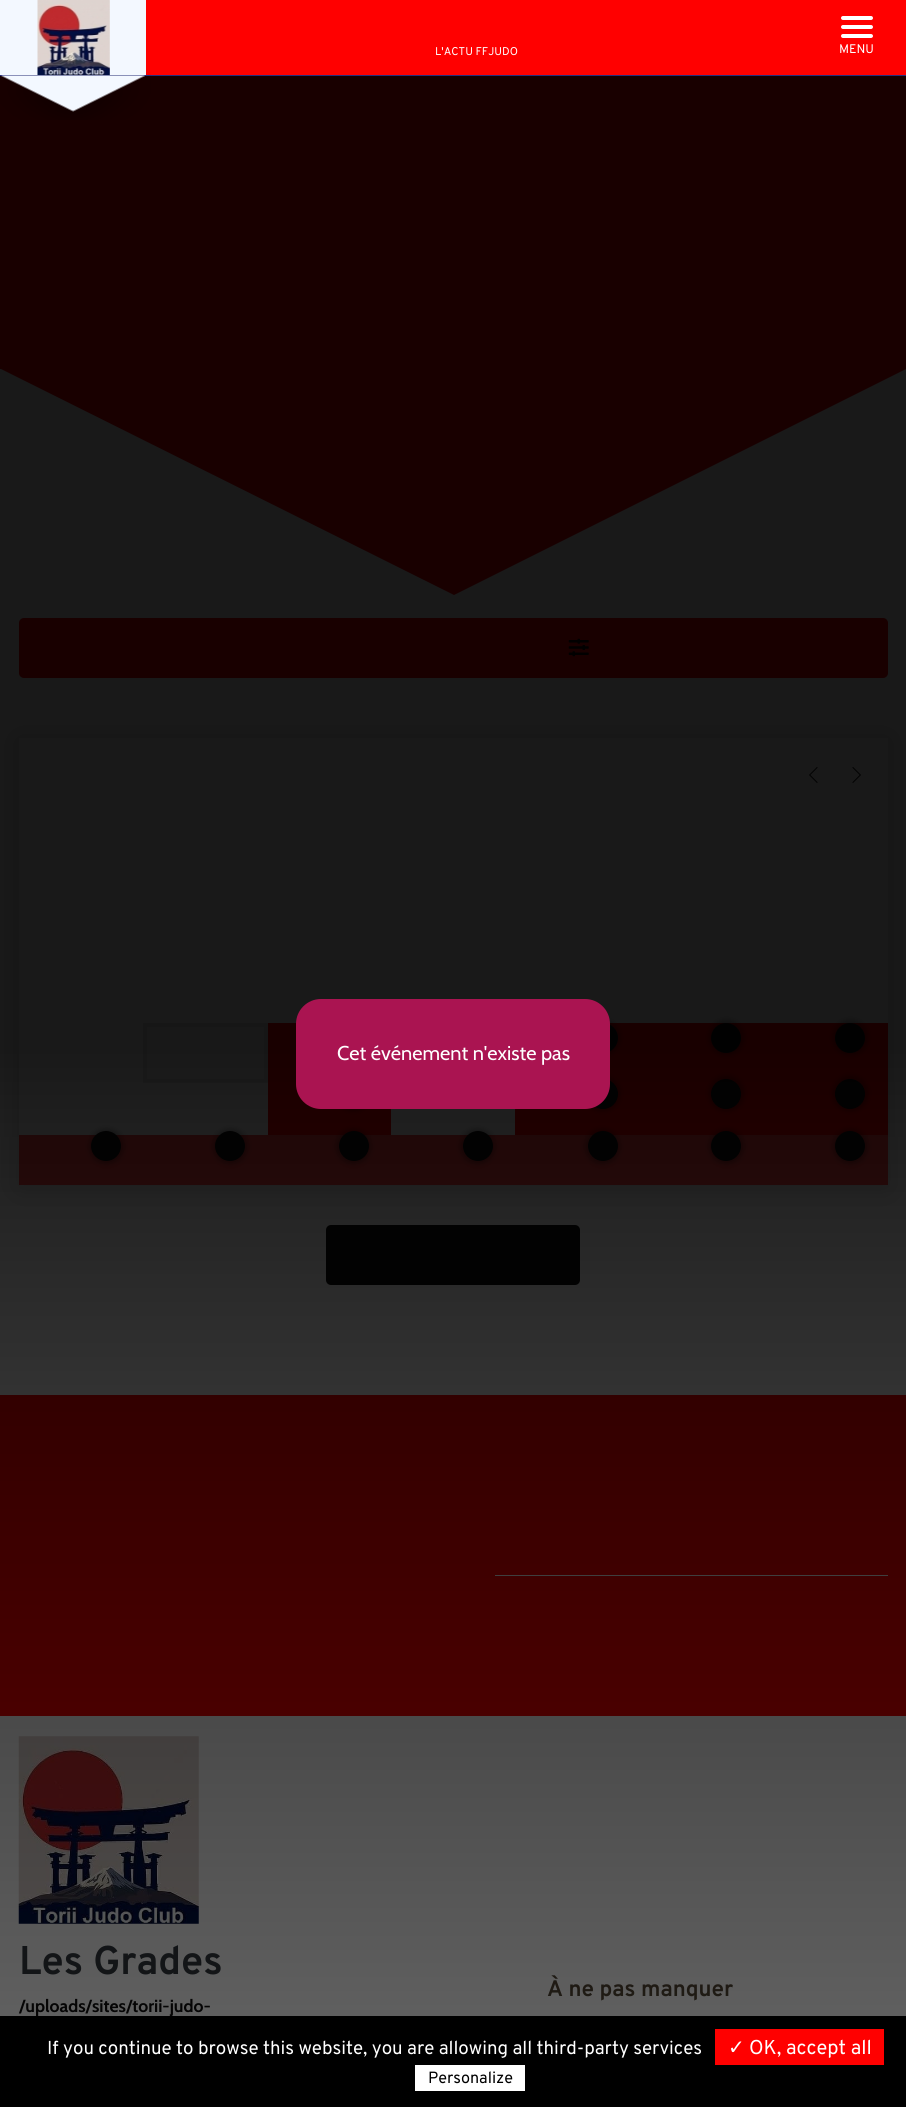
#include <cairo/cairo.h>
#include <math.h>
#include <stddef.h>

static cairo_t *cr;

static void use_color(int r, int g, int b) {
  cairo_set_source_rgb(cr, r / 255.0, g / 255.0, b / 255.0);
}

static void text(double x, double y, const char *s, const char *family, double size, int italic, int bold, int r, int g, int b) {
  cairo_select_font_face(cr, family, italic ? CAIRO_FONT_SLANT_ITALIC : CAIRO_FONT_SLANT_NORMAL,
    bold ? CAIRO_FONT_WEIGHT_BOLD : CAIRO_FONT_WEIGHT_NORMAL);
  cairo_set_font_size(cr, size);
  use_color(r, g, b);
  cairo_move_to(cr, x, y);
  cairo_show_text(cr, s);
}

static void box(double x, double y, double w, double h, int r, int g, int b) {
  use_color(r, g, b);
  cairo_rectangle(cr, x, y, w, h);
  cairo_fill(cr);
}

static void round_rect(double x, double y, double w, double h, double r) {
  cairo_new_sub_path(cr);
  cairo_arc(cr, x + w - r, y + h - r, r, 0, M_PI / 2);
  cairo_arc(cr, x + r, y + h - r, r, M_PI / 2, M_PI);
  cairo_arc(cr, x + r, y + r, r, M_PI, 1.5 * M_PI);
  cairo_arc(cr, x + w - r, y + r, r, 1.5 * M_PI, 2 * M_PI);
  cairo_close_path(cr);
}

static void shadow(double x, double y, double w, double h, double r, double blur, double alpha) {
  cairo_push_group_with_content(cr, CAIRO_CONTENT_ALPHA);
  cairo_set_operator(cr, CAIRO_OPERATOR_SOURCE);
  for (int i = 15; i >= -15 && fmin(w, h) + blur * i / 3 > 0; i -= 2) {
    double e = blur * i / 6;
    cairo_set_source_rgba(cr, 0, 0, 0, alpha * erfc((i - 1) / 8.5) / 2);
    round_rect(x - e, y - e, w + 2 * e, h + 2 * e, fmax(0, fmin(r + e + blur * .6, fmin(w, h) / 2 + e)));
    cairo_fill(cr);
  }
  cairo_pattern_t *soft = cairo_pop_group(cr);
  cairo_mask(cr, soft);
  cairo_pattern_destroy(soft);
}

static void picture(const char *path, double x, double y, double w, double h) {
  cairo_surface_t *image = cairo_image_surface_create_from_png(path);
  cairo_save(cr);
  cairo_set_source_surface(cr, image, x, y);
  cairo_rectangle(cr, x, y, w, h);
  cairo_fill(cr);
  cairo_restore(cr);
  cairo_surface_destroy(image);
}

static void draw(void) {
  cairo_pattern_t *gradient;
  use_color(255, 0, 0);
  cairo_paint(cr);
  box(0, 75, 906, 1, 38, 45, 126);
  use_color(255, 255, 255);
  round_rect(841, 16, 32, 4, 2);
  cairo_fill(cr);
  round_rect(841, 25, 32, 4, 2);
  cairo_fill(cr);
  round_rect(841, 34, 32, 4, 2);
  cairo_fill(cr);
  box(0, 369, 906, 1026, 255, 255, 255);
  use_color(255, 0, 0);
  cairo_new_path(cr);
  cairo_move_to(cr, 1, 369);
  cairo_line_to(cr, 906, 369);
  cairo_line_to(cr, 454, 595);
  cairo_close_path(cr);
  cairo_fill(cr);
  round_rect(19, 618, 869, 60, 5);
  cairo_fill(cr);
  picture("img_03.png", 568, 638, 21, 19);
  use_color(0, 0, 0);
  shadow(19, 740, 869, 448, 0, 12.5, 0.2);
  box(19, 738, 869, 397, 255, 255, 255);
  picture("img_04.png", 809, 767, 9, 16);
  picture("img_05.png", 852, 767, 9, 16);
  box(609, 1023, 279, 60, 255, 0, 0);
  use_color(0, 0, 0);
  shadow(585, 1020, 35, 35, 17.5, 2.5, 0.3);
  use_color(15, 14, 14);
  cairo_arc(cr, 603, 1038, 15, 0, 2 * M_PI);
  cairo_fill(cr);
  use_color(242, 242, 242);
  cairo_rectangle(cr, 145, 1025, 121, 56);
  cairo_fill_preserve(cr);
  use_color(227, 227, 227);
  cairo_set_line_width(cr, 4);
  cairo_stroke(cr);
  box(268, 1023, 29, 60, 255, 0, 0);
  use_color(0, 0, 0);
  shadow(709, 1020, 35, 35, 17.5, 2.5, 0.3);
  use_color(15, 14, 14);
  cairo_arc(cr, 726, 1038, 15, 0, 2 * M_PI);
  cairo_fill(cr);
  use_color(0, 0, 0);
  shadow(833, 1020, 35, 35, 17.5, 2.5, 0.3);
  use_color(15, 14, 14);
  cairo_arc(cr, 850, 1038, 15, 0, 2 * M_PI);
  cairo_fill(cr);
  box(268, 1083, 123, 52, 255, 0, 0);
  use_color(0, 0, 0);
  shadow(336, 1076, 35, 35, 17.5, 2.5, 0.3);
  box(515, 1083, 373, 52, 255, 0, 0);
  use_color(0, 0, 0);
  shadow(585, 1076, 35, 35, 17.5, 2.5, 0.3);
  use_color(15, 14, 14);
  cairo_arc(cr, 603, 1094, 15, 0, 2 * M_PI);
  cairo_fill(cr);
  use_color(0, 0, 0);
  shadow(709, 1076, 35, 35, 17.5, 2.5, 0.3);
  use_color(15, 14, 14);
  cairo_arc(cr, 726, 1094, 15, 0, 2 * M_PI);
  cairo_fill(cr);
  use_color(0, 0, 0);
  shadow(833, 1076, 35, 35, 17.5, 2.5, 0.3);
  use_color(15, 14, 14);
  cairo_arc(cr, 850, 1094, 15, 0, 2 * M_PI);
  cairo_fill(cr);
  box(19, 1135, 869, 50, 255, 64, 64);
  use_color(0, 0, 0);
  shadow(89, 1129, 35, 35, 17.5, 2.5, 0.3);
  use_color(15, 14, 14);
  cairo_arc(cr, 106, 1146, 15, 0, 2 * M_PI);
  cairo_fill(cr);
  use_color(0, 0, 0);
  shadow(213, 1129, 35, 35, 17.5, 2.5, 0.3);
  use_color(15, 14, 14);
  cairo_arc(cr, 230, 1146, 15, 0, 2 * M_PI);
  cairo_fill(cr);
  use_color(0, 0, 0);
  shadow(336, 1129, 35, 35, 17.5, 2.5, 0.3);
  use_color(15, 14, 14);
  cairo_arc(cr, 354, 1146, 15, 0, 2 * M_PI);
  cairo_fill(cr);
  use_color(0, 0, 0);
  shadow(460, 1129, 35, 35, 17.5, 2.5, 0.3);
  use_color(15, 14, 14);
  cairo_arc(cr, 478, 1146, 15, 0, 2 * M_PI);
  cairo_fill(cr);
  use_color(0, 0, 0);
  shadow(585, 1129, 35, 35, 17.5, 2.5, 0.3);
  use_color(15, 14, 14);
  cairo_arc(cr, 603, 1146, 15, 0, 2 * M_PI);
  cairo_fill(cr);
  use_color(0, 0, 0);
  shadow(709, 1129, 35, 35, 17.5, 2.5, 0.3);
  use_color(15, 14, 14);
  cairo_arc(cr, 726, 1146, 15, 0, 2 * M_PI);
  cairo_fill(cr);
  use_color(0, 0, 0);
  shadow(833, 1129, 35, 35, 17.5, 2.5, 0.3);
  use_color(15, 14, 14);
  cairo_arc(cr, 850, 1146, 15, 0, 2 * M_PI);
  cairo_fill(cr);
  round_rect(326, 1225, 254, 60, 5);
  cairo_fill(cr);
  box(495, 1575, 393, 1, 255, 255, 255);
  box(0, 1716, 906, 300, 255, 255, 255);
  picture("img_06.png", 18, 1736, 181, 188);
  text(435, 55, "L'ACTU FFJUDO", "Overpass", 11.25, 0, 0, 255, 255, 255);
  text(839, 53, "MENU", "Overpass", 12.5, 0, 0, 255, 255, 255);
  text(19, 1974, "Les Grades", "Overpass", 40, 0, 1, 52, 58, 64);
  text(19, 2012, "/uploads/sites/torii-judo-", "Cabin", 17.5, 0, 1, 15, 14, 14);
  text(547, 1996, "À ne pas manquer", "Overpass", 22.5, 0, 1, 84, 72, 55);
  gradient = cairo_pattern_create_linear(453, 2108, 453, 0);
  cairo_pattern_add_color_stop_rgba(gradient, 0, 0, 0, 0, 0.6);
  cairo_pattern_add_color_stop_rgba(gradient, 0.5, 0, 0, 0, 0.9);
  cairo_set_source(cr, gradient);
  cairo_pattern_destroy(gradient);
  cairo_rectangle(cr, 0, 76, 906, 1940);
  cairo_fill(cr);
  picture("img_01.png", 0, 72, 151, 48);
  box(0, 0, 146, 75, 243, 248, 255);
  picture("img_02.png", 37, 0, 73, 75);
  use_color(170, 20, 81);
  round_rect(296, 999, 314, 110, 25);
  cairo_fill(cr);
  text(337, 1060, "Cet événement n'existe pas", "Cabin", 20, 0, 0, 255, 255, 255);
  box(0, 2016, 906, 91, 0, 0, 0);
  text(47, 2054, "If you continue to browse this website, you are allowing all third-party services", "Overpass", 18.75, 0, 0, 255, 255, 255);
  box(715, 2029, 169, 36, 255, 0, 0);
  text(728, 2054, "✓", "DejaVu Sans", 20, 0, 0, 255, 255, 255);
  text(749, 2054, "OK, accept all", "Overpass", 20, 0, 0, 255, 255, 255);
  box(415, 2065, 110, 26, 255, 255, 255);
  text(428, 2083, "Personalize", "Overpass", 16.25, 0, 0, 0, 0, 0);
}

int main(void) {
  cairo_surface_t *surface = cairo_image_surface_create(CAIRO_FORMAT_RGB24, 906, 2107);
  cr = cairo_create(surface);
  cairo_font_options_t *options = cairo_font_options_create();
  cairo_font_options_set_hint_metrics(options, CAIRO_HINT_METRICS_OFF);
  cairo_font_options_set_hint_style(options, CAIRO_HINT_STYLE_NONE);
  cairo_set_font_options(cr, options);
  cairo_set_miter_limit(cr, 4);
  draw();
  cairo_surface_write_to_png(surface, "out.png");
  cairo_font_options_destroy(options);
  cairo_destroy(cr);
  cairo_surface_destroy(surface);
  return 0;
}
